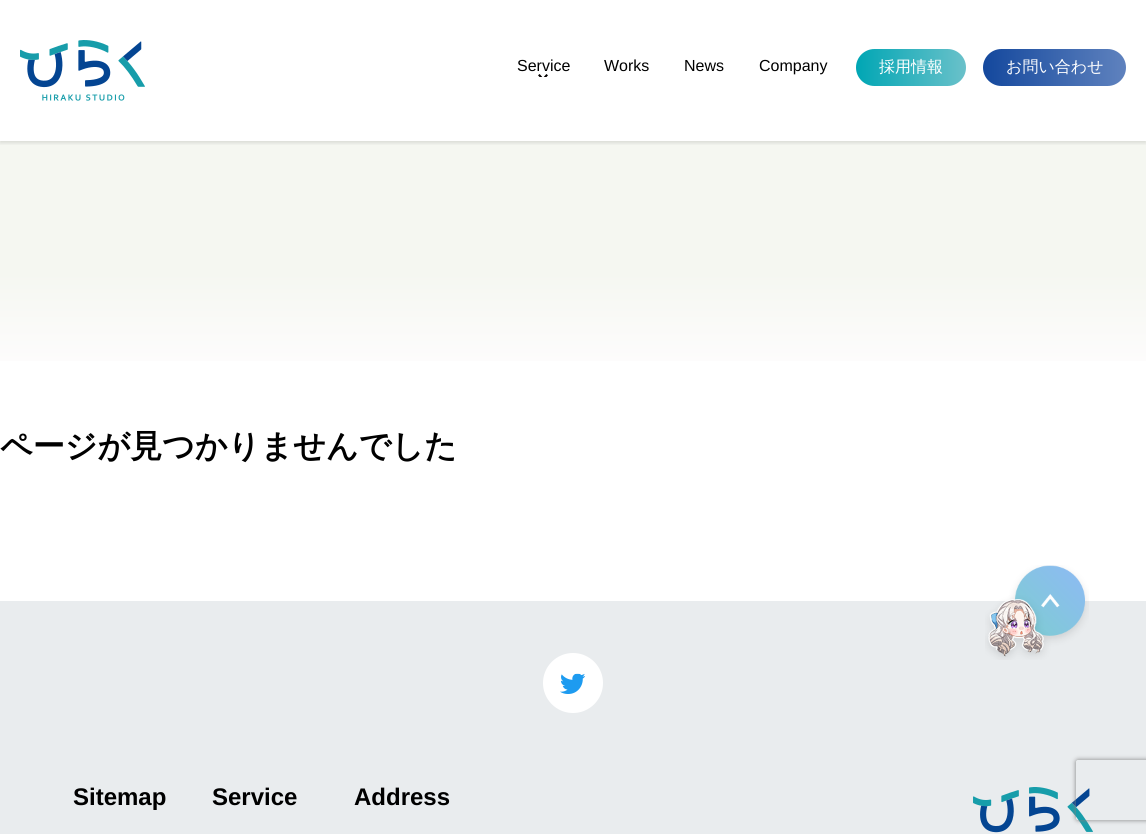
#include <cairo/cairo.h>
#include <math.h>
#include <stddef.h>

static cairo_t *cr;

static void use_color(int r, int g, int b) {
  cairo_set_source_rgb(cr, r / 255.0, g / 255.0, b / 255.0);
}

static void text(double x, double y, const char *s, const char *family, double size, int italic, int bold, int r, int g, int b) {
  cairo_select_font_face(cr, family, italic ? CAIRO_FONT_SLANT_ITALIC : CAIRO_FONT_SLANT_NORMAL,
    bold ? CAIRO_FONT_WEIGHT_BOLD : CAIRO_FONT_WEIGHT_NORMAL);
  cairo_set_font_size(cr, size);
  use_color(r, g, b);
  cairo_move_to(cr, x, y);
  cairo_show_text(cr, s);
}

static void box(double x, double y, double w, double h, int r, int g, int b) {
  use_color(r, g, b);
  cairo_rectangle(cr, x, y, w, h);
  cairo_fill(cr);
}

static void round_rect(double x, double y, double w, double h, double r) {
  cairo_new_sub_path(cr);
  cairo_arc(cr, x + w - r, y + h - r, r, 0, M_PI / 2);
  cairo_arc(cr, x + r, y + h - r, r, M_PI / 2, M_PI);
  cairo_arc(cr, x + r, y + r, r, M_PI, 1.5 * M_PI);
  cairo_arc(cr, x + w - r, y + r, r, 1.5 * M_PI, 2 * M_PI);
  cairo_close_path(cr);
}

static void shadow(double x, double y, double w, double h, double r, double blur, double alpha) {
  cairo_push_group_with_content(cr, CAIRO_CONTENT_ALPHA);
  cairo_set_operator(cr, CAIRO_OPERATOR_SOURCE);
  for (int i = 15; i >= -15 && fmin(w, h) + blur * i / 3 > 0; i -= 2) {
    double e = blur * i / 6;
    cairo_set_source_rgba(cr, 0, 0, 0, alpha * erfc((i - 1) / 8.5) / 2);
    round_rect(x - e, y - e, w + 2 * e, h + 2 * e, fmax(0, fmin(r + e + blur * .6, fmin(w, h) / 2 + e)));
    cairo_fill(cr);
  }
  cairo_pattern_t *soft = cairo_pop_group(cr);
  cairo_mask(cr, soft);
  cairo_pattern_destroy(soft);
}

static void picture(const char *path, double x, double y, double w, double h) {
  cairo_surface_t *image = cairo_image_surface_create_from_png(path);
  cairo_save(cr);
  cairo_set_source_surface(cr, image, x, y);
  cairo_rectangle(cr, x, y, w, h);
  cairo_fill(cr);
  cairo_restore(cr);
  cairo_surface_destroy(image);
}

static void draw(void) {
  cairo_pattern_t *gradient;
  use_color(255, 255, 255);
  cairo_paint(cr);
  gradient = cairo_pattern_create_linear(573, 141, 573, 361);
  cairo_pattern_add_color_stop_rgba(gradient, 0.6, 0.961, 0.969, 0.945, 1);
  cairo_pattern_add_color_stop_rgba(gradient, 1, 0.992, 0.988, 0.988, 1);
  cairo_set_source(cr, gradient);
  cairo_pattern_destroy(gradient);
  cairo_rectangle(cr, 0, 141, 1146, 220);
  cairo_fill(cr);
  cairo_save(cr);
  cairo_rectangle(cr, 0, 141, 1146, 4);
  cairo_clip(cr);
  use_color(0, 0, 0);
  shadow(0, 2, 1146, 141, 0, 2, 0.12);
  cairo_restore(cr);
  picture("img_01.png", 20, 40, 125, 61);
  picture("img_02.png", 538, 74, 10, 3);
  gradient = cairo_pattern_create_linear(856, 68, 966, 68);
  cairo_pattern_add_color_stop_rgba(gradient, 0, 0, 0.651, 0.706, 1);
  cairo_pattern_add_color_stop_rgba(gradient, 1, 0.416, 0.757, 0.792, 1);
  cairo_set_source(cr, gradient);
  cairo_pattern_destroy(gradient);
  round_rect(856, 49, 110, 37, 18.5);
  cairo_fill(cr);
  gradient = cairo_pattern_create_linear(983, 68, 1126, 68);
  cairo_pattern_add_color_stop_rgba(gradient, 0, 0.078, 0.282, 0.616, 1);
  cairo_pattern_add_color_stop_rgba(gradient, 1, 0.373, 0.51, 0.745, 1);
  cairo_set_source(cr, gradient);
  cairo_pattern_destroy(gradient);
  round_rect(983, 49, 143, 37, 18.5);
  cairo_fill(cr);
  box(0, 601, 1146, 233, 233, 236, 238);
  picture("img_03.png", 985, 565, 104, 95);
  picture("img_04.png", 543, 653, 60, 60);
  picture("img_05.png", 973, 787, 120, 46);
  cairo_save(cr);
  cairo_set_fill_rule(cr, CAIRO_FILL_RULE_EVEN_ODD);
  cairo_new_path(cr);
  cairo_move_to(cr, 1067, 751);
  cairo_line_to(cr, 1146, 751);
  cairo_line_to(cr, 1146, 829);
  cairo_line_to(cr, 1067, 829);
  cairo_close_path(cr);
  cairo_move_to(cr, 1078, 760);
  cairo_line_to(cr, 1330, 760);
  cairo_curve_to(cr, 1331, 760, 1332, 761, 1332, 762);
  cairo_line_to(cr, 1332, 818);
  cairo_curve_to(cr, 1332, 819, 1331, 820, 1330, 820);
  cairo_line_to(cr, 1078, 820);
  cairo_curve_to(cr, 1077, 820, 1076, 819, 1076, 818);
  cairo_line_to(cr, 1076, 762);
  cairo_curve_to(cr, 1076, 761, 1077, 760, 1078, 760);
  cairo_close_path(cr);
  cairo_clip(cr);
  use_color(128, 128, 128);
  shadow(1076, 760, 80, 60, 2, 2.5, 1);
  cairo_restore(cr);
  text(517, 71, "Service", "Liberation Sans", 16, 0, 0, 0, 0, 0);
  text(604, 71, "Works", "Liberation Sans", 16, 0, 0, 0, 0, 0);
  text(684, 71, "News", "Liberation Sans", 16, 0, 0, 0, 0, 0);
  text(759, 71, "Company", "Liberation Sans", 16, 0, 0, 0, 0, 0);
  text(879, 72, "採用情報", "WenQuanYi Zen Hei Medium", 16, 0, 0, 255, 255, 255);
  text(1006, 72, "お問い合わせ", "WenQuanYi Zen Hei Medium", 16, 0, 0, 255, 255, 255);
  text(0, 457, "ページが見つかりませんでした", "WenQuanYi Zen Hei", 32, 0, 1, 0, 0, 0);
  text(73, 805, "Sitemap", "Liberation Sans", 24, 0, 1, 0, 0, 0);
  text(212, 805, "Service", "Liberation Sans", 24, 0, 1, 0, 0, 0);
  text(354, 805, "Address", "Liberation Sans", 24, 0, 1, 0, 0, 0);
}

int main(void) {
  cairo_surface_t *surface = cairo_image_surface_create(CAIRO_FORMAT_RGB24, 1146, 834);
  cr = cairo_create(surface);
  cairo_font_options_t *options = cairo_font_options_create();
  cairo_font_options_set_hint_metrics(options, CAIRO_HINT_METRICS_OFF);
  cairo_font_options_set_hint_style(options, CAIRO_HINT_STYLE_NONE);
  cairo_set_font_options(cr, options);
  cairo_set_miter_limit(cr, 4);
  draw();
  cairo_surface_write_to_png(surface, "out.png");
  cairo_font_options_destroy(options);
  cairo_destroy(cr);
  cairo_surface_destroy(surface);
  return 0;
}
